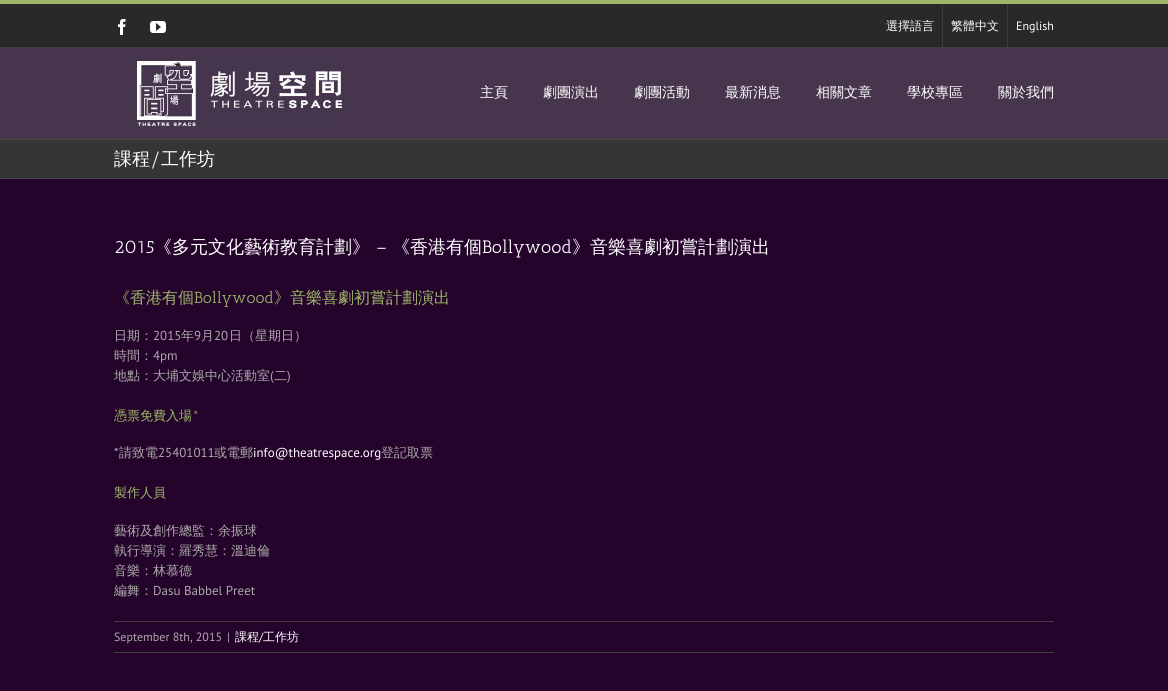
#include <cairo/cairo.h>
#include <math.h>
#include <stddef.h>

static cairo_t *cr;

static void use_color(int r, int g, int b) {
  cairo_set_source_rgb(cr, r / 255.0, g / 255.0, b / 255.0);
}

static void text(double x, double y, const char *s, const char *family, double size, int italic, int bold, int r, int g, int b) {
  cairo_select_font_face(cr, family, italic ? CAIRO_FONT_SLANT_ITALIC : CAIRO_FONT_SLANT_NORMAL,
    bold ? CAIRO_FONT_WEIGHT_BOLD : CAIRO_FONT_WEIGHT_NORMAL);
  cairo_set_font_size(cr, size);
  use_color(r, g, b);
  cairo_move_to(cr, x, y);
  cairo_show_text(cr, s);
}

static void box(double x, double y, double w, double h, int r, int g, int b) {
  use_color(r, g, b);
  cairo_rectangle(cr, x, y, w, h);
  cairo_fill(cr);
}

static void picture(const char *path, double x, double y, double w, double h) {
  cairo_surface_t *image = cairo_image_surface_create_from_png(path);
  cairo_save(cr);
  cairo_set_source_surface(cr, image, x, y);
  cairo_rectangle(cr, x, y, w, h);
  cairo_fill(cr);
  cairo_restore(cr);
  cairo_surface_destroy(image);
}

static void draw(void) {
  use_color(37, 4, 43);
  cairo_paint(cr);
  box(0, 0, 1168, 4, 157, 182, 104);
  box(0, 4, 1168, 43, 41, 41, 42);
  box(0, 47, 1168, 1, 62, 62, 62);
  picture("img_01.png", 118, 19, 8, 16);
  picture("img_02.png", 150, 21, 16, 12);
  box(942, 4, 1, 43, 62, 62, 62);
  box(1007, 4, 1, 43, 62, 62, 62);
  box(0, 48, 1168, 90, 70, 53, 77);
  box(0, 138, 1168, 1, 62, 62, 62);
  picture("img_03.png", 130, 56, 216, 72);
  box(0, 140, 1168, 38, 53, 53, 53);
  box(0, 139, 1168, 1, 70, 70, 70);
  box(0, 178, 1168, 1, 70, 70, 70);
  box(114, 621, 940, 1, 62, 62, 62);
  box(114, 652, 940, 1, 62, 62, 62);
  text(886, 30, "選擇語言", "WenQuanYi Zen Hei Medium", 12, 0, 0, 255, 255, 255);
  text(951, 30, "繁體中文", "WenQuanYi Zen Hei Medium", 12, 0, 0, 255, 255, 255);
  text(1016, 30, "English", "PT Sans", 12, 0, 0, 255, 255, 255);
  text(480, 97, "主頁", "WenQuanYi Zen Hei Medium", 14, 0, 0, 255, 255, 255);
  text(543, 97, "劇團演出", "WenQuanYi Zen Hei Medium", 14, 0, 0, 255, 255, 255);
  text(634, 97, "劇團活動", "WenQuanYi Zen Hei Medium", 14, 0, 0, 255, 255, 255);
  text(725, 97, "最新消息", "WenQuanYi Zen Hei Medium", 14, 0, 0, 255, 255, 255);
  text(816, 97, "相關文章", "WenQuanYi Zen Hei Medium", 14, 0, 0, 255, 255, 255);
  text(907, 97, "學校專區", "WenQuanYi Zen Hei Medium", 14, 0, 0, 255, 255, 255);
  text(998, 97, "關於我們", "WenQuanYi Zen Hei Medium", 14, 0, 0, 255, 255, 255);
  text(114, 165, "課程", "WenQuanYi Zen Hei Medium", 18, 0, 0, 255, 255, 255);
  text(150, 165, "/", "Antic Slab", 18, 0, 0, 255, 255, 255);
  text(161, 165, "工作坊", "WenQuanYi Zen Hei Medium", 18, 0, 0, 255, 255, 255);
  text(114, 253, "2015", "Antic Slab", 18, 0, 0, 255, 255, 255);
  text(154, 253, "《多元文化藝術教育計劃》", "WenQuanYi Zen Hei Medium", 18, 0, 0, 255, 255, 255);
  text(376, 253, "–", "Antic Slab", 18, 0, 0, 255, 255, 255);
  text(392, 253, "《香港有個", "WenQuanYi Zen Hei Medium", 18, 0, 0, 255, 255, 255);
  text(482, 253, "Bollywood", "Antic Slab", 18, 0, 0, 255, 255, 255);
  text(572, 253, "》音樂喜劇初嘗計劃演出", "WenQuanYi Zen Hei Medium", 18, 0, 0, 255, 255, 255);
  text(114, 303, "《香港有個", "WenQuanYi Zen Hei Medium", 16, 0, 0, 157, 182, 104);
  text(194, 303, "Bollywood", "Antic Slab", 16, 0, 0, 157, 182, 104);
  text(274, 303, "》音樂喜劇初嘗計劃演出", "WenQuanYi Zen Hei Medium", 16, 0, 0, 157, 182, 104);
  text(114, 340, "日期：", "WenQuanYi Zen Hei Medium", 13, 0, 0, 170, 169, 169);
  text(153, 340, "2015", "PT Sans", 13, 0, 0, 170, 169, 169);
  text(181, 340, "年", "WenQuanYi Zen Hei Medium", 13, 0, 0, 170, 169, 169);
  text(194, 340, "9", "PT Sans", 13, 0, 0, 170, 169, 169);
  text(201, 340, "月", "WenQuanYi Zen Hei Medium", 13, 0, 0, 170, 169, 169);
  text(214, 340, "20", "PT Sans", 13, 0, 0, 170, 169, 169);
  text(229, 340, "日（星期日）", "WenQuanYi Zen Hei Medium", 13, 0, 0, 170, 169, 169);
  text(114, 360, "時間：", "WenQuanYi Zen Hei Medium", 13, 0, 0, 170, 169, 169);
  text(153, 360, "4pm", "PT Sans", 13, 0, 0, 170, 169, 169);
  text(114, 380, "地點：大埔文娛中心活動室", "WenQuanYi Zen Hei Medium", 13, 0, 0, 170, 169, 169);
  text(270, 380, "(", "PT Sans", 13, 0, 0, 170, 169, 169);
  text(274, 380, "二", "WenQuanYi Zen Hei Medium", 13, 0, 0, 170, 169, 169);
  text(287, 380, ")", "PT Sans", 13, 0, 0, 170, 169, 169);
  text(114, 420, "憑票免費入場", "WenQuanYi Zen Hei Medium", 13, 0, 0, 157, 182, 104);
  text(192, 420, "*", "Antic Slab", 13, 0, 0, 157, 182, 104);
  text(114, 457, "*", "PT Sans", 13, 0, 0, 170, 169, 169);
  text(119, 457, "請致電", "WenQuanYi Zen Hei Medium", 13, 0, 0, 170, 169, 169);
  text(158, 457, "25401011", "PT Sans", 13, 0, 0, 170, 169, 169);
  text(214, 457, "或電郵", "WenQuanYi Zen Hei Medium", 13, 0, 0, 170, 169, 169);
  text(253, 457, "info@theatrespace.org", "PT Sans", 13, 0, 0, 255, 255, 255);
  text(381, 457, "登記取票", "WenQuanYi Zen Hei Medium", 13, 0, 0, 170, 169, 169);
  text(114, 497, "製作人員", "WenQuanYi Zen Hei Medium", 13, 0, 0, 157, 182, 104);
  text(114, 535, "藝術及創作總監：余振球", "WenQuanYi Zen Hei Medium", 13, 0, 0, 170, 169, 169);
  text(114, 555, "執行導演：羅秀慧：溫迪倫", "WenQuanYi Zen Hei Medium", 13, 0, 0, 170, 169, 169);
  text(114, 575, "音樂：林慕德", "WenQuanYi Zen Hei Medium", 13, 0, 0, 170, 169, 169);
  text(114, 595, "編舞：", "WenQuanYi Zen Hei Medium", 13, 0, 0, 170, 169, 169);
  text(153, 595, "Dasu Babbel Preet", "PT Sans", 13, 0, 0, 170, 169, 169);
  text(114, 641, "September 8th, 2015", "PT Sans", 12, 0, 0, 170, 169, 169);
  text(227, 641, "|", "PT Sans", 12, 0, 0, 170, 169, 169);
  text(235, 641, "課程", "WenQuanYi Zen Hei Medium", 12, 0, 0, 255, 255, 255);
  text(259, 641, "/", "PT Sans", 12, 0, 0, 255, 255, 255);
  text(263, 641, "工作坊", "WenQuanYi Zen Hei Medium", 12, 0, 0, 255, 255, 255);
}

int main(void) {
  cairo_surface_t *surface = cairo_image_surface_create(CAIRO_FORMAT_RGB24, 1168, 691);
  cr = cairo_create(surface);
  cairo_font_options_t *options = cairo_font_options_create();
  cairo_font_options_set_hint_metrics(options, CAIRO_HINT_METRICS_OFF);
  cairo_font_options_set_hint_style(options, CAIRO_HINT_STYLE_NONE);
  cairo_set_font_options(cr, options);
  cairo_set_miter_limit(cr, 4);
  draw();
  cairo_surface_write_to_png(surface, "out.png");
  cairo_font_options_destroy(options);
  cairo_destroy(cr);
  cairo_surface_destroy(surface);
  return 0;
}
